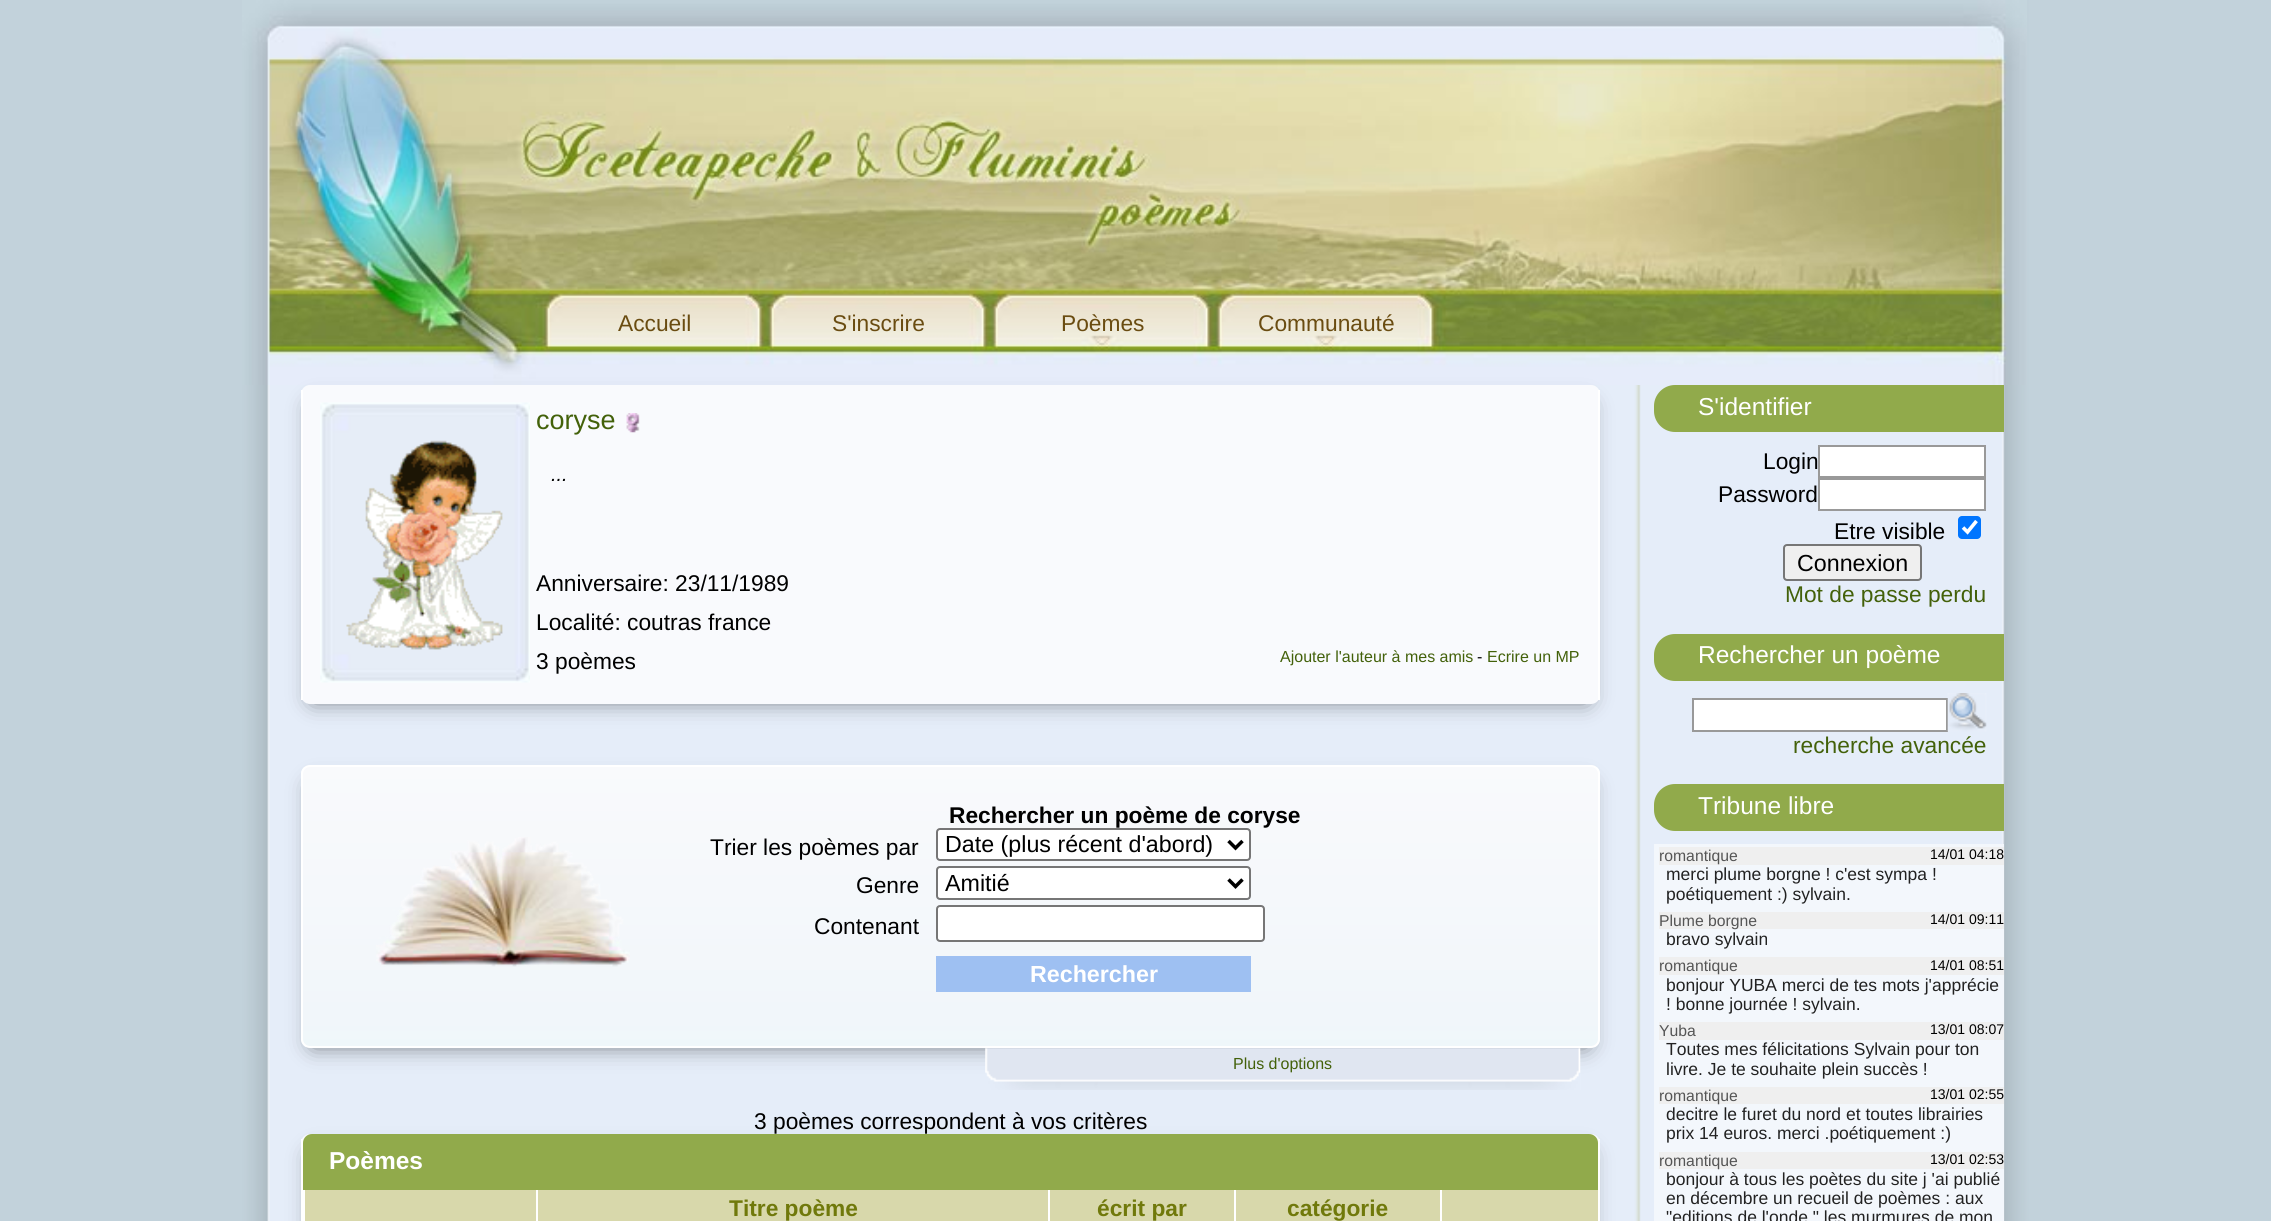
#include <cairo/cairo.h>
#include <math.h>
#include <stddef.h>

static cairo_t *cr;

static void use_color(int r, int g, int b) {
  cairo_set_source_rgb(cr, r / 255.0, g / 255.0, b / 255.0);
}

static void text(double x, double y, const char *s, const char *family, double size, int italic, int bold, int r, int g, int b) {
  cairo_select_font_face(cr, family, italic ? CAIRO_FONT_SLANT_ITALIC : CAIRO_FONT_SLANT_NORMAL,
    bold ? CAIRO_FONT_WEIGHT_BOLD : CAIRO_FONT_WEIGHT_NORMAL);
  cairo_set_font_size(cr, size);
  use_color(r, g, b);
  cairo_move_to(cr, x, y);
  cairo_show_text(cr, s);
}

static void box(double x, double y, double w, double h, int r, int g, int b) {
  use_color(r, g, b);
  cairo_rectangle(cr, x, y, w, h);
  cairo_fill(cr);
}

static void round_rect(double x, double y, double w, double h, double r) {
  cairo_new_sub_path(cr);
  cairo_arc(cr, x + w - r, y + h - r, r, 0, M_PI / 2);
  cairo_arc(cr, x + r, y + h - r, r, M_PI / 2, M_PI);
  cairo_arc(cr, x + r, y + r, r, M_PI, 1.5 * M_PI);
  cairo_arc(cr, x + w - r, y + r, r, 1.5 * M_PI, 2 * M_PI);
  cairo_close_path(cr);
}

static void shadow(double x, double y, double w, double h, double r, double blur, double alpha) {
  cairo_push_group_with_content(cr, CAIRO_CONTENT_ALPHA);
  cairo_set_operator(cr, CAIRO_OPERATOR_SOURCE);
  for (int i = 15; i >= -15 && fmin(w, h) + blur * i / 3 > 0; i -= 2) {
    double e = blur * i / 6;
    cairo_set_source_rgba(cr, 0, 0, 0, alpha * erfc((i - 1) / 8.5) / 2);
    round_rect(x - e, y - e, w + 2 * e, h + 2 * e, fmax(0, fmin(r + e + blur * .6, fmin(w, h) / 2 + e)));
    cairo_fill(cr);
  }
  cairo_pattern_t *soft = cairo_pop_group(cr);
  cairo_mask(cr, soft);
  cairo_pattern_destroy(soft);
}

static void picture(const char *path, double x, double y, double w, double h) {
  cairo_surface_t *image = cairo_image_surface_create_from_png(path);
  cairo_save(cr);
  cairo_set_source_surface(cr, image, x, y);
  cairo_rectangle(cr, x, y, w, h);
  cairo_fill(cr);
  cairo_restore(cr);
  cairo_surface_destroy(image);
}

static void draw(void) {
  cairo_pattern_t *gradient;
  use_color(194, 210, 219);
  cairo_paint(cr);
  picture("img_01.png", 242, 0, 1788, 1221);
  picture("img_02.png", 242, 0, 1785, 385);
  use_color(0, 0, 0);
  shadow(313, 406, 1274, 294, 0, 11.5, 0.57);
  use_color(249, 250, 253);
  round_rect(301, 385, 1299, 319, 9);
  cairo_fill(cr);
  box(1598, 390, 2, 310, 255, 255, 255);
  box(301, 390, 2, 310, 255, 255, 255);
  picture("img_03.png", 320, 402, 210, 281);
  picture("img_04.png", 346, 440, 157, 210);
  picture("img_05.png", 626, 413, 14, 20);
  use_color(0, 0, 0);
  shadow(313, 786, 1274, 259, 0, 11.5, 0.57);
  cairo_save(cr);
  round_rect(301, 765, 1299, 283, 9);
  cairo_clip(cr);
  gradient = cairo_pattern_create_linear(950, 1047, 950, 767);
  cairo_pattern_add_color_stop_rgba(gradient, 0, 0.937, 0.969, 0.98, 1);
  cairo_pattern_add_color_stop_rgba(gradient, 0.1, 0.945, 0.965, 0.98, 1);
  cairo_pattern_add_color_stop_rgba(gradient, 1, 0.976, 0.98, 0.988, 1);
  cairo_set_source(cr, gradient);
  cairo_pattern_destroy(gradient);
  cairo_rectangle(cr, 301, 767, 1299, 280);
  cairo_fill(cr);
  cairo_restore(cr);
  round_rect(302, 766, 1297, 281, 8);
  use_color(255, 255, 255);
  cairo_stroke(cr);
  picture("img_06.png", 376, 837, 254, 130);
  round_rect(937, 829, 313, 31, 3);
  cairo_fill_preserve(cr);
  use_color(118, 118, 118);
  cairo_stroke(cr);
  cairo_new_path(cr);
  cairo_move_to(cr, 1228.5, 841);
  cairo_line_to(cr, 1235.5, 848);
  cairo_line_to(cr, 1242.5, 841);
  use_color(0, 0, 0);
  cairo_set_line_width(cr, 3.5);
  cairo_stroke(cr);
  use_color(255, 255, 255);
  round_rect(937, 867, 313, 32, 3);
  cairo_fill_preserve(cr);
  use_color(118, 118, 118);
  cairo_set_line_width(cr, 2);
  cairo_stroke(cr);
  cairo_new_path(cr);
  cairo_move_to(cr, 1228.5, 879.5);
  cairo_line_to(cr, 1235.5, 886.5);
  cairo_line_to(cr, 1242.5, 879.5);
  use_color(0, 0, 0);
  cairo_set_line_width(cr, 3.5);
  cairo_stroke(cr);
  use_color(255, 255, 255);
  round_rect(937, 906, 327, 35, 3);
  cairo_fill_preserve(cr);
  use_color(118, 118, 118);
  cairo_set_line_width(cr, 2);
  cairo_stroke(cr);
  box(936, 956, 315, 36, 158, 192, 242);
  picture("img_07.png", 985, 1048, 596, 42);
  use_color(0, 0, 0);
  shadow(313, 1155, 1274, 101, 0, 11.5, 0.57);
  use_color(249, 250, 253);
  round_rect(301, 1134, 1299, 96, 9);
  cairo_fill(cr);
  box(1598, 1139, 2, 82, 255, 255, 255);
  box(301, 1139, 2, 82, 255, 255, 255);
  use_color(145, 170, 75);
  cairo_new_path(cr);
  cairo_move_to(cr, 312, 1134);
  cairo_line_to(cr, 1589, 1134);
  cairo_curve_to(cr, 1594, 1134, 1598, 1138, 1598, 1143);
  cairo_line_to(cr, 1598, 1190);
  cairo_line_to(cr, 303, 1190);
  cairo_line_to(cr, 303, 1143);
  cairo_curve_to(cr, 303, 1138, 307, 1134, 312, 1134);
  cairo_close_path(cr);
  cairo_fill(cr);
  box(305, 1190, 231, 31, 216, 216, 171);
  box(303, 1190, 2, 31, 255, 255, 255);
  box(538, 1190, 510, 31, 216, 216, 171);
  box(536, 1190, 2, 31, 255, 255, 255);
  box(1050, 1190, 184, 31, 216, 216, 171);
  box(1048, 1190, 2, 31, 255, 255, 255);
  box(1236, 1190, 204, 31, 216, 216, 171);
  box(1234, 1190, 2, 31, 255, 255, 255);
  box(1442, 1190, 156, 31, 216, 216, 171);
  box(1440, 1190, 2, 31, 255, 255, 255);
  use_color(145, 170, 75);
  cairo_new_path(cr);
  cairo_move_to(cr, 1675, 385);
  cairo_line_to(cr, 2004, 385);
  cairo_line_to(cr, 2004, 432);
  cairo_line_to(cr, 1675, 432);
  cairo_curve_to(cr, 1663.5, 432, 1654, 422.5, 1654, 411);
  cairo_line_to(cr, 1654, 406);
  cairo_curve_to(cr, 1654, 394.5, 1663.5, 385, 1675, 385);
  cairo_close_path(cr);
  cairo_fill(cr);
  use_color(255, 255, 255);
  cairo_rectangle(cr, 1819, 446, 166, 31);
  cairo_fill_preserve(cr);
  use_color(153, 153, 153);
  cairo_stroke(cr);
  use_color(255, 255, 255);
  cairo_rectangle(cr, 1819, 479, 166, 31);
  cairo_fill_preserve(cr);
  use_color(153, 153, 153);
  cairo_stroke(cr);
  use_color(0, 117, 255);
  round_rect(1958, 516, 23, 23, 4);
  cairo_fill(cr);
  cairo_new_path(cr);
  cairo_move_to(cr, 1963, 527.5);
  cairo_line_to(cr, 1967.5, 532);
  cairo_line_to(cr, 1976.5, 521);
  use_color(255, 255, 255);
  cairo_set_line_width(cr, 3.6);
  cairo_stroke(cr);
  use_color(239, 239, 239);
  round_rect(1784, 545, 137, 35, 3);
  cairo_fill_preserve(cr);
  use_color(118, 118, 118);
  cairo_set_line_width(cr, 2);
  cairo_stroke(cr);
  use_color(145, 170, 75);
  cairo_new_path(cr);
  cairo_move_to(cr, 1675, 634);
  cairo_line_to(cr, 2004, 634);
  cairo_line_to(cr, 2004, 681);
  cairo_line_to(cr, 1675, 681);
  cairo_curve_to(cr, 1663.5, 681, 1654, 671.5, 1654, 660);
  cairo_line_to(cr, 1654, 655);
  cairo_curve_to(cr, 1654, 643.5, 1663.5, 634, 1675, 634);
  cairo_close_path(cr);
  cairo_fill(cr);
  use_color(255, 255, 255);
  cairo_rectangle(cr, 1693, 699, 254, 32);
  cairo_fill_preserve(cr);
  use_color(153, 153, 153);
  cairo_stroke(cr);
  picture("img_08.png", 1947, 693, 40, 39);
  use_color(145, 170, 75);
  cairo_new_path(cr);
  cairo_move_to(cr, 1675, 784);
  cairo_line_to(cr, 2004, 784);
  cairo_line_to(cr, 2004, 831);
  cairo_line_to(cr, 1675, 831);
  cairo_curve_to(cr, 1663.5, 831, 1654, 821.5, 1654, 810);
  cairo_line_to(cr, 1654, 805);
  cairo_curve_to(cr, 1654, 793.5, 1663.5, 784, 1675, 784);
  cairo_close_path(cr);
  cairo_fill(cr);
  box(1654, 844, 350, 377, 243, 247, 252);
  box(1659, 847, 345, 18, 239, 239, 239);
  box(1659, 912, 345, 17, 239, 239, 239);
  box(1659, 957, 345, 18, 239, 239, 239);
  box(1659, 1022, 345, 18, 239, 239, 239);
  box(1659, 1087, 345, 17, 239, 239, 239);
  box(1659, 1152, 345, 17, 239, 239, 239);
  text(618, 331, "Accueil", "Liberation Sans", 22.75, 0, 0, 106, 76, 17);
  text(832, 331, "S'inscrire", "Liberation Sans", 22.75, 0, 0, 106, 76, 17);
  text(1061, 331, "Poèmes", "Liberation Sans", 22.75, 0, 0, 106, 76, 17);
  text(1258, 331, "Communauté", "Liberation Sans", 22.75, 0, 0, 106, 76, 17);
  text(536, 429, "coryse", "Liberation Sans", 27, 0, 0, 67, 97, 10);
  text(551, 481, "...", "Liberation Sans", 20, 1, 0, 0, 0, 0);
  text(536, 591, "Anniversaire: 23/11/1989", "Liberation Sans", 22.75, 0, 0, 0, 0, 0);
  text(536, 630, "Localité: coutras france", "Liberation Sans", 22.75, 0, 0, 0, 0, 0);
  text(536, 669, "3 poèmes", "Liberation Sans", 22.75, 0, 0, 0, 0, 0);
  text(1280, 662, "Ajouter l'auteur à mes amis", "Liberation Sans", 16, 0, 0, 67, 97, 10);
  text(1477, 662, "-", "Liberation Sans", 16, 0, 0, 0, 0, 0);
  text(1487, 662, "Ecrire un MP", "Liberation Sans", 16, 0, 0, 67, 97, 10);
  text(949, 823, "Rechercher un poème de coryse", "Liberation Sans", 22.75, 0, 1, 0, 0, 0);
  text(710, 855, "Trier les poèmes par", "Liberation Sans", 22.75, 0, 0, 0, 0, 0);
  text(945, 852, "Date (plus récent d'abord)", "Liberation Sans", 23.25, 0, 0, 0, 0, 0);
  text(856, 893, "Genre", "Liberation Sans", 22.75, 0, 0, 0, 0, 0);
  text(945, 891, "Amitié", "Liberation Sans", 23.25, 0, 0, 0, 0, 0);
  text(814, 934, "Contenant", "Liberation Sans", 22.75, 0, 0, 0, 0, 0);
  text(1030, 982, "Rechercher", "Liberation Sans", 23.25, 0, 1, 255, 255, 255);
  text(1233, 1069, "Plus d'options", "Liberation Sans", 16, 0, 0, 67, 97, 10);
  text(754, 1129, "3 poèmes correspondent à vos critères", "Liberation Sans", 22.75, 0, 0, 0, 0, 0);
  text(329, 1169, "Poèmes", "Liberation Sans", 24.5, 0, 1, 255, 255, 255);
  text(729, 1216, "Titre poème", "Liberation Sans", 22.75, 0, 1, 112, 121, 11);
  text(1097, 1216, "écrit par", "Liberation Sans", 22.75, 0, 1, 112, 121, 11);
  text(1287, 1216, "catégorie", "Liberation Sans", 22.75, 0, 1, 112, 121, 11);
  text(1698, 415, "S'identifier", "Liberation Sans", 24.5, 0, 0, 255, 255, 255);
  text(1763, 469, "Login", "Liberation Sans", 22.75, 0, 0, 0, 0, 0);
  text(1718, 502, "Password", "Liberation Sans", 22.75, 0, 0, 0, 0, 0);
  text(1834, 539, "Etre visible", "Liberation Sans", 22.75, 0, 0, 0, 0, 0);
  text(1797, 571, "Connexion", "Liberation Sans", 23.25, 0, 0, 0, 0, 0);
  text(1785, 602, "Mot de passe perdu", "Liberation Sans", 22.75, 0, 0, 67, 97, 10);
  text(1698, 663, "Rechercher un poème", "Liberation Sans", 24.5, 0, 0, 255, 255, 255);
  text(1793, 753, "recherche avancée", "Liberation Sans", 22.75, 0, 0, 67, 97, 10);
  text(1698, 814, "Tribune libre", "Liberation Sans", 24.5, 0, 0, 255, 255, 255);
  text(1659, 861, "romantique", "Liberation Sans", 15.75, 0, 0, 85, 85, 85);
  text(1930, 859, "14/01 04:18", "Liberation Sans", 14, 0, 0, 0, 0, 0);
  text(1666, 880, "merci plume borgne ! c'est sympa !", "Liberation Sans", 17.5, 0, 0, 34, 34, 34);
  text(1666, 900, "poétiquement :) sylvain.", "Liberation Sans", 17.5, 0, 0, 34, 34, 34);
  text(1659, 926, "Plume borgne", "Liberation Sans", 15.75, 0, 0, 85, 85, 85);
  text(1930, 924, "14/01 09:11", "Liberation Sans", 14, 0, 0, 0, 0, 0);
  text(1666, 945, "bravo sylvain", "Liberation Sans", 17.5, 0, 0, 34, 34, 34);
  text(1659, 971, "romantique", "Liberation Sans", 15.75, 0, 0, 85, 85, 85);
  text(1930, 970, "14/01 08:51", "Liberation Sans", 14, 0, 0, 0, 0, 0);
  text(1666, 991, "bonjour YUBA merci de tes mots j'apprécie", "Liberation Sans", 17.5, 0, 0, 34, 34, 34);
  text(1666, 1010, "! bonne journée ! sylvain.", "Liberation Sans", 17.5, 0, 0, 34, 34, 34);
  text(1659, 1036, "Yuba", "Liberation Sans", 15.75, 0, 0, 85, 85, 85);
  text(1930, 1034, "13/01 08:07", "Liberation Sans", 14, 0, 0, 0, 0, 0);
  text(1666, 1055, "Toutes mes félicitations Sylvain pour ton", "Liberation Sans", 17.5, 0, 0, 34, 34, 34);
  text(1666, 1075, "livre. Je te souhaite plein succès !", "Liberation Sans", 17.5, 0, 0, 34, 34, 34);
  text(1659, 1101, "romantique", "Liberation Sans", 15.75, 0, 0, 85, 85, 85);
  text(1930, 1099, "13/01 02:55", "Liberation Sans", 14, 0, 0, 0, 0, 0);
  text(1666, 1120, "decitre le furet du nord et toutes librairies", "Liberation Sans", 17.5, 0, 0, 34, 34, 34);
  text(1666, 1139, "prix 14 euros. merci .poétiquement :)", "Liberation Sans", 17.5, 0, 0, 34, 34, 34);
  text(1659, 1166, "romantique", "Liberation Sans", 15.75, 0, 0, 85, 85, 85);
  text(1930, 1164, "13/01 02:53", "Liberation Sans", 14, 0, 0, 0, 0, 0);
  text(1666, 1185, "bonjour à tous les poètes du site j 'ai publié", "Liberation Sans", 17.5, 0, 0, 34, 34, 34);
  text(1666, 1204, "en décembre un recueil de poèmes : aux", "Liberation Sans", 17.5, 0, 0, 34, 34, 34);
  text(1666, 1223, "\"editions de l'onde \" les murmures de mon", "Liberation Sans", 17.5, 0, 0, 34, 34, 34);
}

int main(void) {
  cairo_surface_t *surface = cairo_image_surface_create(CAIRO_FORMAT_RGB24, 2271, 1221);
  cr = cairo_create(surface);
  cairo_font_options_t *options = cairo_font_options_create();
  cairo_font_options_set_hint_metrics(options, CAIRO_HINT_METRICS_OFF);
  cairo_font_options_set_hint_style(options, CAIRO_HINT_STYLE_NONE);
  cairo_set_font_options(cr, options);
  cairo_set_miter_limit(cr, 4);
  draw();
  cairo_surface_write_to_png(surface, "out.png");
  cairo_font_options_destroy(options);
  cairo_destroy(cr);
  cairo_surface_destroy(surface);
  return 0;
}
